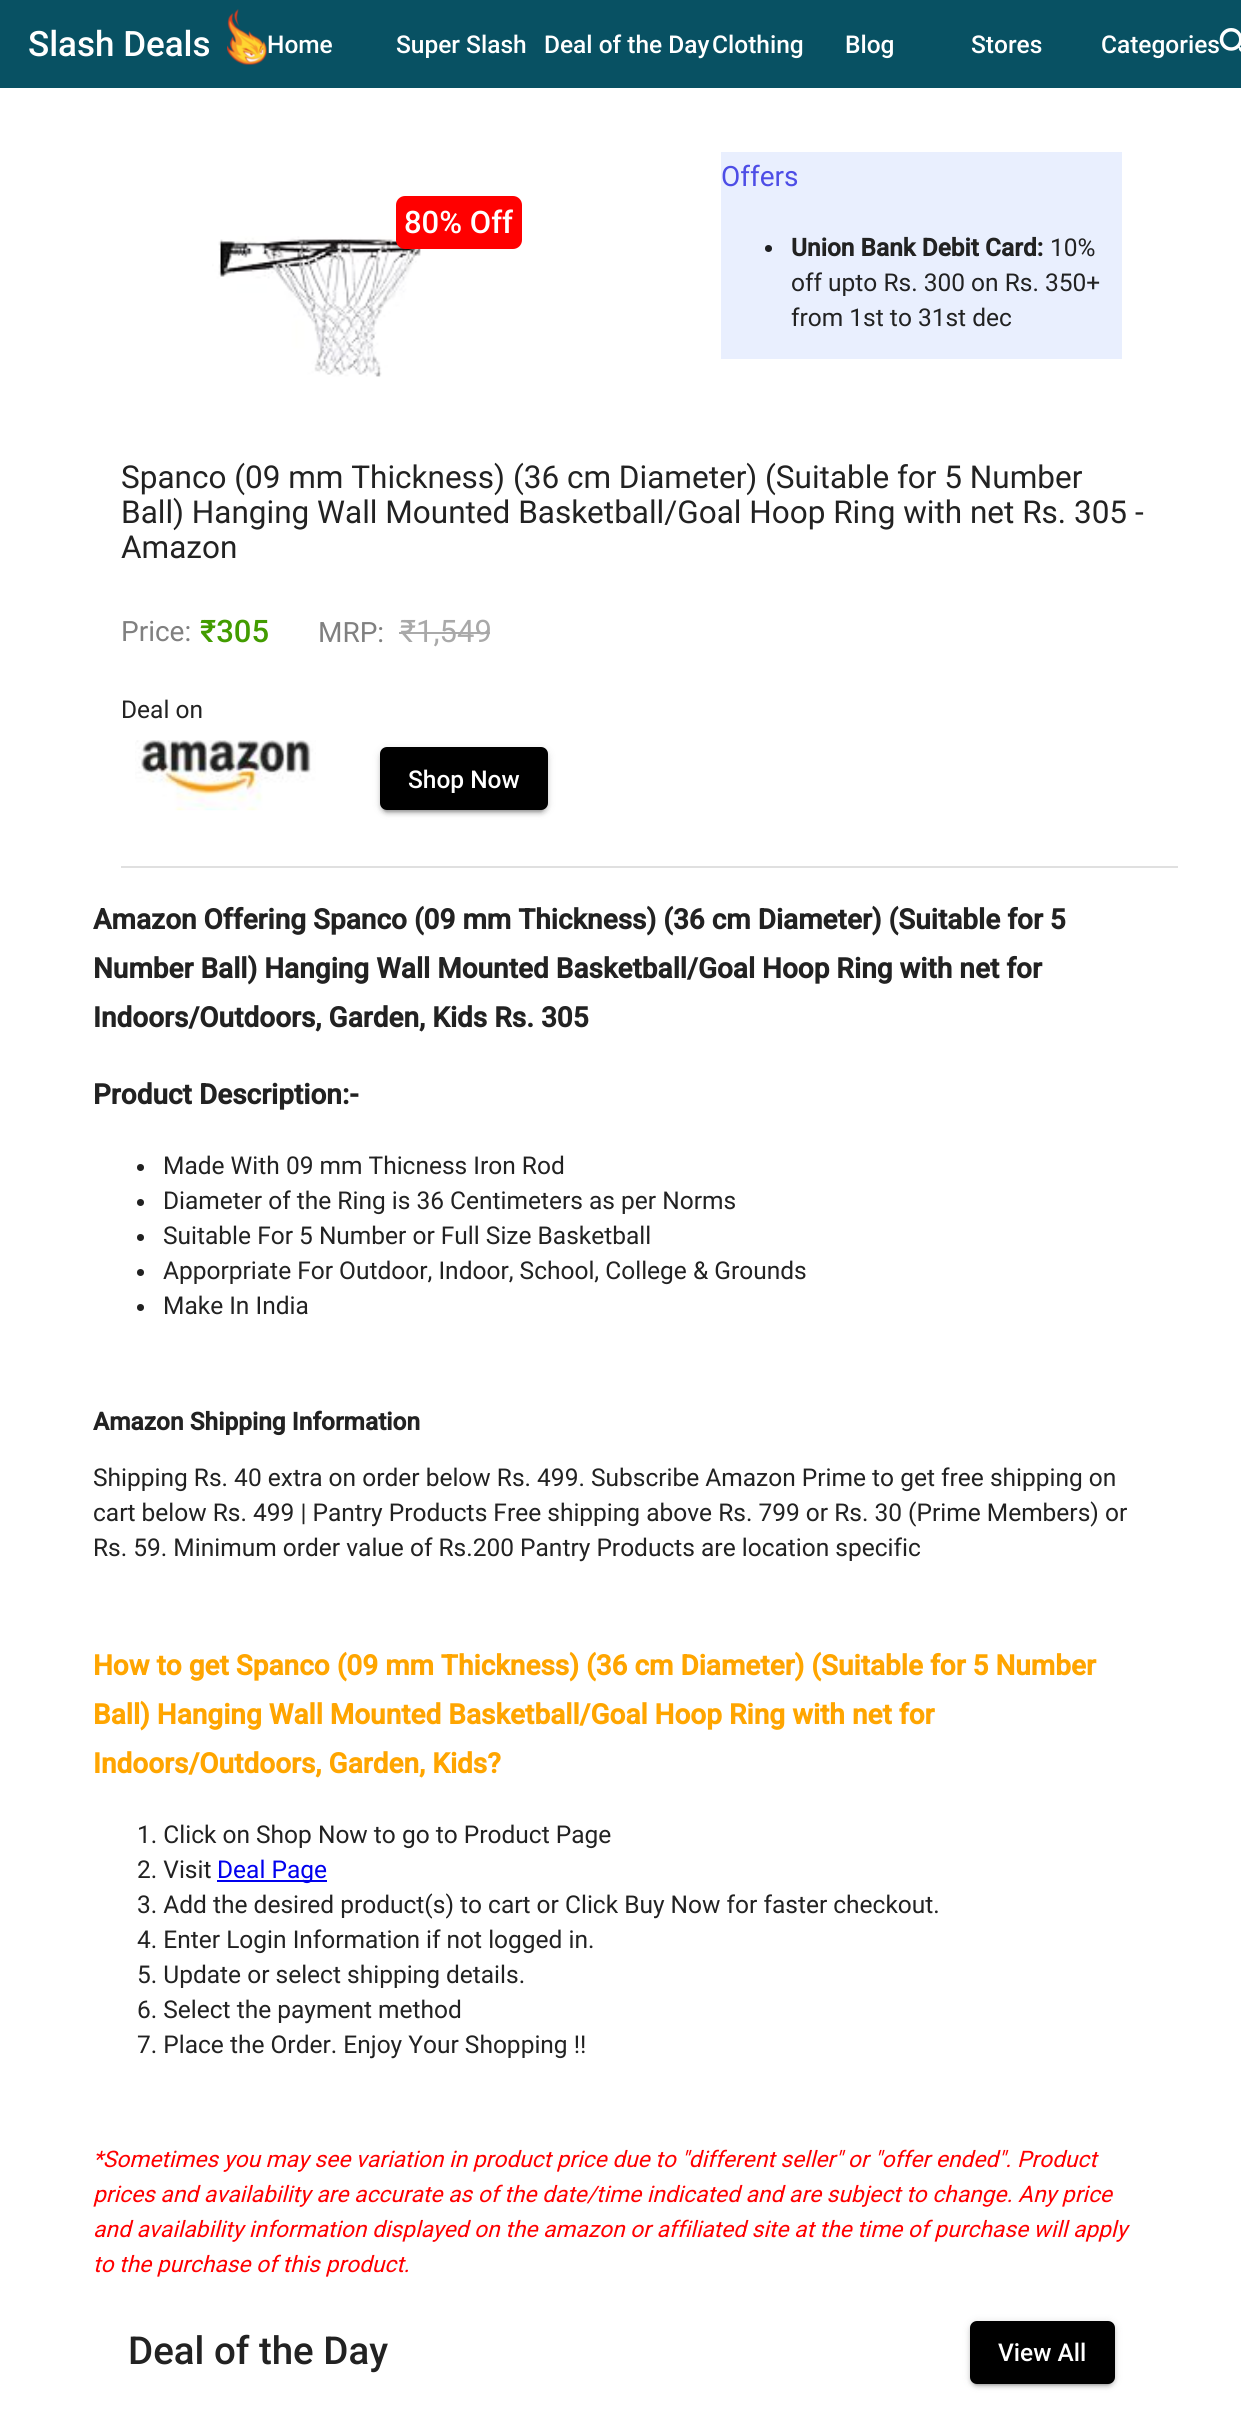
#include <cairo/cairo.h>
#include <math.h>
#include <stddef.h>

static cairo_t *cr;

static void use_color(int r, int g, int b) {
  cairo_set_source_rgb(cr, r / 255.0, g / 255.0, b / 255.0);
}

static void text(double x, double y, const char *s, const char *family, double size, int italic, int bold, int r, int g, int b) {
  cairo_select_font_face(cr, family, italic ? CAIRO_FONT_SLANT_ITALIC : CAIRO_FONT_SLANT_NORMAL,
    bold ? CAIRO_FONT_WEIGHT_BOLD : CAIRO_FONT_WEIGHT_NORMAL);
  cairo_set_font_size(cr, size);
  use_color(r, g, b);
  cairo_move_to(cr, x, y);
  cairo_show_text(cr, s);
}

static void box(double x, double y, double w, double h, int r, int g, int b) {
  use_color(r, g, b);
  cairo_rectangle(cr, x, y, w, h);
  cairo_fill(cr);
}

static void round_rect(double x, double y, double w, double h, double r) {
  cairo_new_sub_path(cr);
  cairo_arc(cr, x + w - r, y + h - r, r, 0, M_PI / 2);
  cairo_arc(cr, x + r, y + h - r, r, M_PI / 2, M_PI);
  cairo_arc(cr, x + r, y + r, r, M_PI, 1.5 * M_PI);
  cairo_arc(cr, x + w - r, y + r, r, 1.5 * M_PI, 2 * M_PI);
  cairo_close_path(cr);
}

static void shadow(double x, double y, double w, double h, double r, double blur, double alpha) {
  cairo_push_group_with_content(cr, CAIRO_CONTENT_ALPHA);
  cairo_set_operator(cr, CAIRO_OPERATOR_SOURCE);
  for (int i = 15; i >= -15 && fmin(w, h) + blur * i / 3 > 0; i -= 2) {
    double e = blur * i / 6;
    cairo_set_source_rgba(cr, 0, 0, 0, alpha * erfc((i - 1) / 8.5) / 2);
    round_rect(x - e, y - e, w + 2 * e, h + 2 * e, fmax(0, fmin(r + e + blur * .6, fmin(w, h) / 2 + e)));
    cairo_fill(cr);
  }
  cairo_pattern_t *soft = cairo_pop_group(cr);
  cairo_mask(cr, soft);
  cairo_pattern_destroy(soft);
}

static void picture(const char *path, double x, double y, double w, double h) {
  cairo_surface_t *image = cairo_image_surface_create_from_png(path);
  cairo_save(cr);
  cairo_set_source_surface(cr, image, x, y);
  cairo_rectangle(cr, x, y, w, h);
  cairo_fill(cr);
  cairo_restore(cr);
  cairo_surface_destroy(image);
}

static void draw(void) {
  use_color(8, 81, 99);
  cairo_paint(cr);
  picture("img_01.png", 227, 9, 40, 56);
  picture("img_02.png", 1219, 28, 22, 24);
  box(0, 88, 1241, 2332, 255, 255, 255);
  picture("img_03.png", 212, 236, 209, 141);
  use_color(255, 0, 0);
  round_rect(396, 196, 126, 53, 9);
  cairo_fill(cr);
  box(721, 152, 401, 207, 233, 239, 254);
  use_color(30, 31, 33);
  cairo_arc(cr, 768.5, 248.5, 3.5, 0, 2 * M_PI);
  cairo_fill(cr);
  box(399, 632, 91, 2, 169, 169, 169);
  picture("img_04.png", 135, 740, 181, 71);
  use_color(0, 0, 0);
  shadow(380, 749, 168, 63, 7, 4.5, 0.12);
  shadow(380, 751, 168, 63, 7, 2, 0.14);
  shadow(383, 756, 161, 56, 4, 1, 0.2);
  use_color(0, 0, 0);
  round_rect(380, 747, 168, 63, 7);
  cairo_fill(cr);
  box(121, 866, 1057, 2, 224, 224, 224);
  use_color(33, 33, 33);
  cairo_arc(cr, 140.5, 1167.5, 3.5, 0, 2 * M_PI);
  cairo_fill(cr);
  cairo_arc(cr, 140.5, 1202.5, 3.5, 0, 2 * M_PI);
  cairo_fill(cr);
  cairo_arc(cr, 140.5, 1237.5, 3.5, 0, 2 * M_PI);
  cairo_fill(cr);
  cairo_arc(cr, 140.5, 1272.5, 3.5, 0, 2 * M_PI);
  cairo_fill(cr);
  cairo_arc(cr, 140.5, 1307.5, 3.5, 0, 2 * M_PI);
  cairo_fill(cr);
  box(217, 1880, 110, 2, 0, 0, 238);
  use_color(0, 0, 0);
  shadow(970, 2322, 145, 63, 7, 4.5, 0.12);
  shadow(970, 2324, 145, 63, 7, 2, 0.14);
  shadow(973, 2329, 138, 56, 4, 1, 0.2);
  use_color(0, 0, 0);
  round_rect(970, 2321, 145, 63, 7);
  cairo_fill(cr);
  text(28, 56, "Slash Deals", "Roboto Medium", 35, 0, 0, 255, 255, 255);
  text(267, 53, "Home", "Roboto Medium", 24.5, 0, 0, 255, 255, 255);
  text(396, 53, "Super Slash", "Roboto Medium", 24.5, 0, 0, 255, 255, 255);
  text(544, 53, "Deal of the Day", "Roboto Medium", 24.5, 0, 0, 255, 255, 255);
  text(712, 53, "Clothing", "Roboto Medium", 24.5, 0, 0, 255, 255, 255);
  text(845, 53, "Blog", "Roboto Medium", 24.5, 0, 0, 255, 255, 255);
  text(971, 53, "Stores", "Roboto Medium", 24.5, 0, 0, 255, 255, 255);
  text(1101, 53, "Categories", "Roboto Medium", 24.5, 0, 0, 255, 255, 255);
  text(404, 233, "80% Off", "Roboto Medium", 31, 0, 0, 255, 255, 255);
  text(721, 186, "Offers", "Roboto", 28, 0, 0, 77, 77, 230);
  text(791, 256, "Union Bank Debit Card:", "Roboto", 24.5, 0, 1, 34, 34, 34);
  text(1050, 256, "10%", "Roboto", 24.5, 0, 0, 34, 34, 34);
  text(791, 291, "off upto Rs. 300 on Rs. 350+", "Roboto", 24.5, 0, 0, 34, 34, 34);
  text(791, 326, "from 1st to 31st dec", "Roboto", 24.5, 0, 0, 34, 34, 34);
  text(121, 488, "Spanco (09 mm Thickness) (36 cm Diameter) (Suitable for 5 Number", "Roboto", 31.5, 0, 0, 34, 34, 34);
  text(121, 523, "Ball) Hanging Wall Mounted Basketball/Goal Hoop Ring with net Rs. 305 -", "Roboto", 31.5, 0, 0, 34, 34, 34);
  text(121, 558, "Amazon", "Roboto", 31.5, 0, 0, 34, 34, 34);
  text(121, 641, "Price:", "Roboto", 28, 0, 0, 128, 128, 128);
  text(200, 642, "₹305", "Roboto Medium", 31, 0, 0, 66, 156, 0);
  text(318, 642, "MRP:", "Roboto", 28, 0, 0, 128, 128, 128);
  text(400, 642, "₹1,549", "Roboto", 31, 0, 0, 169, 169, 169);
  text(121, 718, "Deal on", "Roboto", 24.5, 0, 0, 34, 34, 34);
  text(408, 788, "Shop Now", "Roboto Medium", 24.5, 0, 0, 255, 255, 255);
  text(93, 929, "Amazon Offering Spanco (09 mm Thickness) (36 cm Diameter) (Suitable for 5", "Roboto", 28, 0, 1, 34, 34, 34);
  text(93, 978, "Number Ball) Hanging Wall Mounted Basketball/Goal Hoop Ring with net for", "Roboto", 28, 0, 1, 34, 34, 34);
  text(93, 1027, "Indoors/Outdoors, Garden, Kids Rs. 305", "Roboto", 28, 0, 1, 34, 34, 34);
  text(93, 1104, "Product Description:-", "Roboto", 28, 0, 1, 34, 34, 34);
  text(163, 1174, "Made With 09 mm Thicness Iron Rod", "Roboto", 24.5, 0, 0, 34, 34, 34);
  text(163, 1209, "Diameter of the Ring is 36 Centimeters as per Norms", "Roboto", 24.5, 0, 0, 34, 34, 34);
  text(163, 1244, "Suitable For 5 Number or Full Size Basketball", "Roboto", 24.5, 0, 0, 34, 34, 34);
  text(163, 1279, "Apporpriate For Outdoor, Indoor, School, College & Grounds", "Roboto", 24.5, 0, 0, 34, 34, 34);
  text(163, 1314, "Make In India", "Roboto", 24.5, 0, 0, 34, 34, 34);
  text(93, 1430, "Amazon Shipping Information", "Roboto", 24.5, 0, 1, 34, 34, 34);
  text(93, 1486, "Shipping Rs. 40 extra on order below Rs. 499. Subscribe Amazon Prime to get free shipping on", "Roboto", 24.5, 0, 0, 34, 34, 34);
  text(93, 1521, "cart below Rs. 499 | Pantry Products Free shipping above Rs. 799 or Rs. 30 (Prime Members) or", "Roboto", 24.5, 0, 0, 34, 34, 34);
  text(93, 1556, "Rs. 59. Minimum order value of Rs.200 Pantry Products are location specific", "Roboto", 24.5, 0, 0, 34, 34, 34);
  text(93, 1675, "How to get Spanco (09 mm Thickness) (36 cm Diameter) (Suitable for 5 Number", "Roboto", 28, 0, 1, 255, 165, 0);
  text(93, 1724, "Ball) Hanging Wall Mounted Basketball/Goal Hoop Ring with net for", "Roboto", 28, 0, 1, 255, 165, 0);
  text(93, 1773, "Indoors/Outdoors, Garden, Kids?", "Roboto", 28, 0, 1, 255, 165, 0);
  text(137, 1843, "1. Click on Shop Now to go to Product Page", "Roboto", 24.5, 0, 0, 34, 34, 34);
  text(137, 1878, "2. Visit", "Roboto", 24.5, 0, 0, 34, 34, 34);
  text(217, 1878, "Deal Page", "Roboto", 24.5, 0, 0, 0, 0, 238);
  text(137, 1913, "3. Add the desired product(s) to cart or Click Buy Now for faster checkout.", "Roboto", 24.5, 0, 0, 34, 34, 34);
  text(137, 1948, "4. Enter Login Information if not logged in.", "Roboto", 24.5, 0, 0, 34, 34, 34);
  text(137, 1983, "5. Update or select shipping details.", "Roboto", 24.5, 0, 0, 34, 34, 34);
  text(137, 2018, "6. Select the payment method", "Roboto", 24.5, 0, 0, 34, 34, 34);
  text(137, 2053, "7. Place the Order. Enjoy Your Shopping !!", "Roboto", 24.5, 0, 0, 34, 34, 34);
  text(93, 2167, "*Sometimes you may see variation in product price due to \"different seller\" or \"offer ended\". Product", "Roboto", 22.75, 1, 0, 255, 0, 0);
  text(93, 2202, "prices and availability are accurate as of the date/time indicated and are subject to change. Any price", "Roboto", 22.75, 1, 0, 255, 0, 0);
  text(93, 2237, "and availability information displayed on the amazon or affiliated site at the time of purchase will apply", "Roboto", 22.75, 1, 0, 255, 0, 0);
  text(93, 2272, "to the purchase of this product.", "Roboto", 22.75, 1, 0, 255, 0, 0);
  text(128, 2364, "Deal of the Day", "Roboto Medium", 38.5, 0, 0, 34, 34, 34);
  text(998, 2361, "View All", "Roboto Medium", 24.5, 0, 0, 255, 255, 255);
}

int main(void) {
  cairo_surface_t *surface = cairo_image_surface_create(CAIRO_FORMAT_RGB24, 1241, 2420);
  cr = cairo_create(surface);
  cairo_font_options_t *options = cairo_font_options_create();
  cairo_font_options_set_hint_metrics(options, CAIRO_HINT_METRICS_OFF);
  cairo_font_options_set_hint_style(options, CAIRO_HINT_STYLE_NONE);
  cairo_set_font_options(cr, options);
  cairo_set_miter_limit(cr, 4);
  draw();
  cairo_surface_write_to_png(surface, "out.png");
  cairo_font_options_destroy(options);
  cairo_destroy(cr);
  cairo_surface_destroy(surface);
  return 0;
}
